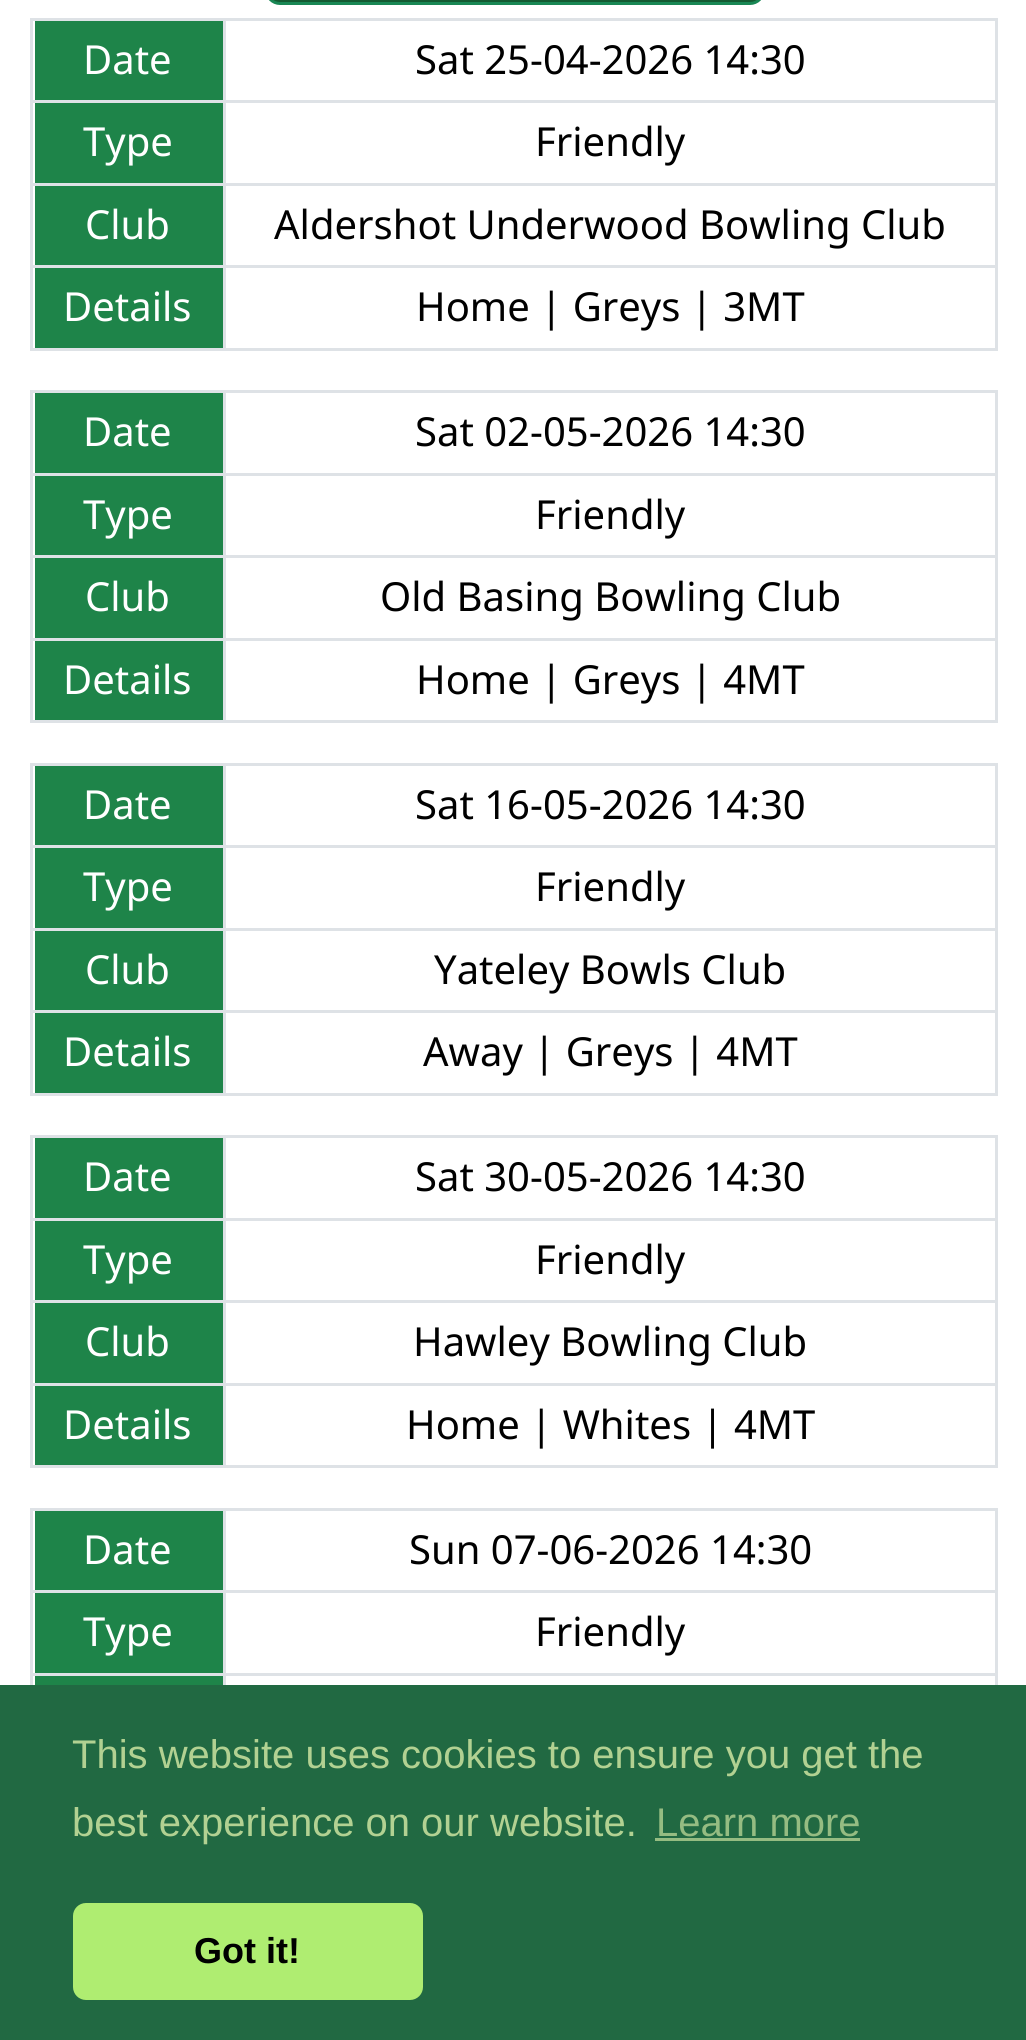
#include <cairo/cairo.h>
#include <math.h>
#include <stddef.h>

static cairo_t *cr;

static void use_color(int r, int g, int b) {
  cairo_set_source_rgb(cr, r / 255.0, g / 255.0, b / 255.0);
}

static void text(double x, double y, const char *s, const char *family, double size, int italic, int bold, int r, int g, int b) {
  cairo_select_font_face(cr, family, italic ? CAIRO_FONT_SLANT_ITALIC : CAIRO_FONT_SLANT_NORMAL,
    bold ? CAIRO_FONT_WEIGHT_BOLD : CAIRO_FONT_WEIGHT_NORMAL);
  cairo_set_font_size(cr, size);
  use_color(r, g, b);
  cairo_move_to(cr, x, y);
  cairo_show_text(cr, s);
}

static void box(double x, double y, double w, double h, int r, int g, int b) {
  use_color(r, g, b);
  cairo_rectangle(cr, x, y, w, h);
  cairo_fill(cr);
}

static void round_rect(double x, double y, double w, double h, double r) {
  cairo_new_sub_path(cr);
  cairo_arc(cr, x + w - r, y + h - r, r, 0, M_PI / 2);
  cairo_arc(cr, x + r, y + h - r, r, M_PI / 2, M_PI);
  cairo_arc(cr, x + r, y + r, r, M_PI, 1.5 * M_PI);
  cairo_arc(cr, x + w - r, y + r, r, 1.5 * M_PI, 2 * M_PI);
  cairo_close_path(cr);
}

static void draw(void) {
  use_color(255, 255, 255);
  cairo_paint(cr);
  use_color(20, 90, 50);
  round_rect(266.5, -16.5, 497, 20, 13.5);
  cairo_fill_preserve(cr);
  use_color(25, 135, 84);
  cairo_set_line_width(cr, 3);
  cairo_stroke(cr);
  box(30, 18, 968, 3, 222, 226, 230);
  box(35, 21, 188, 79, 30, 132, 73);
  box(30, 100, 968, 3, 222, 226, 230);
  box(35, 103, 188, 80, 30, 132, 73);
  box(30, 183, 968, 3, 222, 226, 230);
  box(35, 186, 188, 79, 30, 132, 73);
  box(30, 265, 968, 3, 222, 226, 230);
  box(30, 348, 968, 3, 222, 226, 230);
  box(35, 268, 188, 80, 30, 132, 73);
  box(30, 18, 3, 332, 222, 226, 230);
  box(995, 18, 3, 332, 222, 226, 230);
  box(223, 18, 3, 332, 222, 226, 230);
  box(30, 390, 968, 3, 222, 226, 230);
  box(35, 393, 188, 80, 30, 132, 73);
  box(30, 473, 968, 3, 222, 226, 230);
  box(35, 476, 188, 79, 30, 132, 73);
  box(30, 555, 968, 3, 222, 226, 230);
  box(35, 558, 188, 80, 30, 132, 73);
  box(30, 638, 968, 3, 222, 226, 230);
  box(30, 720, 968, 3, 222, 226, 230);
  box(35, 641, 188, 79, 30, 132, 73);
  box(30, 390, 3, 333, 222, 226, 230);
  box(995, 390, 3, 333, 222, 226, 230);
  box(223, 390, 3, 333, 222, 226, 230);
  box(30, 763, 968, 3, 222, 226, 230);
  box(35, 766, 188, 79, 30, 132, 73);
  box(30, 845, 968, 3, 222, 226, 230);
  box(35, 848, 188, 80, 30, 132, 73);
  box(30, 928, 968, 3, 222, 226, 230);
  box(35, 931, 188, 79, 30, 132, 73);
  box(30, 1010, 968, 3, 222, 226, 230);
  box(30, 1093, 968, 3, 222, 226, 230);
  box(35, 1013, 188, 80, 30, 132, 73);
  box(30, 763, 3, 332, 222, 226, 230);
  box(995, 763, 3, 332, 222, 226, 230);
  box(223, 763, 3, 332, 222, 226, 230);
  box(30, 1135, 968, 3, 222, 226, 230);
  box(35, 1138, 188, 80, 30, 132, 73);
  box(30, 1218, 968, 3, 222, 226, 230);
  box(35, 1221, 188, 79, 30, 132, 73);
  box(30, 1300, 968, 3, 222, 226, 230);
  box(35, 1303, 188, 80, 30, 132, 73);
  box(30, 1383, 968, 3, 222, 226, 230);
  box(30, 1465, 968, 3, 222, 226, 230);
  box(35, 1386, 188, 79, 30, 132, 73);
  box(30, 1135, 3, 333, 222, 226, 230);
  box(995, 1135, 3, 333, 222, 226, 230);
  box(223, 1135, 3, 333, 222, 226, 230);
  box(30, 1673, 968, 3, 222, 226, 230);
  box(35, 1676, 188, 9, 30, 132, 73);
  box(30, 1508, 968, 3, 222, 226, 230);
  box(30, 1590, 968, 3, 222, 226, 230);
  box(30, 1508, 3, 177, 222, 226, 230);
  box(995, 1508, 3, 177, 222, 226, 230);
  box(223, 1508, 3, 177, 222, 226, 230);
  box(35, 1511, 188, 79, 30, 132, 73);
  box(35, 1593, 188, 80, 30, 132, 73);
  box(0, 1685, 1026, 355, 33, 105, 66);
  box(655, 1838, 205, 3, 149, 188, 130);
  use_color(175, 237, 113);
  round_rect(73, 1903, 350, 97, 13);
  cairo_fill(cr);
  text(83, 74, "Date", "Noto Sans", 40, 0, 0, 255, 255, 255);
  text(415, 74, "Sat 25-04-2026 14:30", "Noto Sans", 40, 0, 0, 0, 0, 0);
  text(83, 156, "Type", "Noto Sans", 40, 0, 0, 255, 255, 255);
  text(535, 156, "Friendly", "Noto Sans", 40, 0, 0, 0, 0, 0);
  text(85, 239, "Club", "Noto Sans", 40, 0, 0, 255, 255, 255);
  text(274, 239, "Aldershot Underwood Bowling Club", "Noto Sans", 40, 0, 0, 0, 0, 0);
  text(63, 321, "Details", "Noto Sans", 40, 0, 0, 255, 255, 255);
  text(416, 321, "Home | Greys | 3MT", "Noto Sans", 40, 0, 0, 0, 0, 0);
  text(83, 446, "Date", "Noto Sans", 40, 0, 0, 255, 255, 255);
  text(415, 446, "Sat 02-05-2026 14:30", "Noto Sans", 40, 0, 0, 0, 0, 0);
  text(83, 529, "Type", "Noto Sans", 40, 0, 0, 255, 255, 255);
  text(535, 529, "Friendly", "Noto Sans", 40, 0, 0, 0, 0, 0);
  text(85, 611, "Club", "Noto Sans", 40, 0, 0, 255, 255, 255);
  text(380, 611, "Old Basing Bowling Club", "Noto Sans", 40, 0, 0, 0, 0, 0);
  text(63, 694, "Details", "Noto Sans", 40, 0, 0, 255, 255, 255);
  text(416, 694, "Home | Greys | 4MT", "Noto Sans", 40, 0, 0, 0, 0, 0);
  text(83, 819, "Date", "Noto Sans", 40, 0, 0, 255, 255, 255);
  text(415, 819, "Sat 16-05-2026 14:30", "Noto Sans", 40, 0, 0, 0, 0, 0);
  text(83, 901, "Type", "Noto Sans", 40, 0, 0, 255, 255, 255);
  text(535, 901, "Friendly", "Noto Sans", 40, 0, 0, 0, 0, 0);
  text(85, 984, "Club", "Noto Sans", 40, 0, 0, 255, 255, 255);
  text(434, 984, "Yateley Bowls Club", "Noto Sans", 40, 0, 0, 0, 0, 0);
  text(63, 1066, "Details", "Noto Sans", 40, 0, 0, 255, 255, 255);
  text(423, 1066, "Away | Greys | 4MT", "Noto Sans", 40, 0, 0, 0, 0, 0);
  text(83, 1191, "Date", "Noto Sans", 40, 0, 0, 255, 255, 255);
  text(415, 1191, "Sat 30-05-2026 14:30", "Noto Sans", 40, 0, 0, 0, 0, 0);
  text(83, 1274, "Type", "Noto Sans", 40, 0, 0, 255, 255, 255);
  text(535, 1274, "Friendly", "Noto Sans", 40, 0, 0, 0, 0, 0);
  text(85, 1356, "Club", "Noto Sans", 40, 0, 0, 255, 255, 255);
  text(413, 1356, "Hawley Bowling Club", "Noto Sans", 40, 0, 0, 0, 0, 0);
  text(63, 1439, "Details", "Noto Sans", 40, 0, 0, 255, 255, 255);
  text(406, 1439, "Home | Whites | 4MT", "Noto Sans", 40, 0, 0, 0, 0, 0);
  text(83, 1564, "Date", "Noto Sans", 40, 0, 0, 255, 255, 255);
  text(409, 1564, "Sun 07-06-2026 14:30", "Noto Sans", 40, 0, 0, 0, 0, 0);
  text(83, 1646, "Type", "Noto Sans", 40, 0, 0, 255, 255, 255);
  text(535, 1646, "Friendly", "Noto Sans", 40, 0, 0, 0, 0, 0);
  text(72, 1768, "This website uses cookies to ensure you get the", "Liberation Sans", 40, 0, 0, 178, 209, 146);
  text(72, 1836, "best experience on our website.", "Liberation Sans", 40, 0, 0, 178, 209, 146);
  text(656, 1836, "Learn more", "Liberation Sans", 40, 0, 0, 149, 188, 130);
  text(194, 1963, "Got it!", "Liberation Sans", 36, 0, 1, 0, 0, 0);
}

int main(void) {
  cairo_surface_t *surface = cairo_image_surface_create(CAIRO_FORMAT_RGB24, 1026, 2040);
  cr = cairo_create(surface);
  cairo_font_options_t *options = cairo_font_options_create();
  cairo_font_options_set_hint_metrics(options, CAIRO_HINT_METRICS_OFF);
  cairo_font_options_set_hint_style(options, CAIRO_HINT_STYLE_NONE);
  cairo_set_font_options(cr, options);
  cairo_set_miter_limit(cr, 4);
  draw();
  cairo_surface_write_to_png(surface, "out.png");
  cairo_font_options_destroy(options);
  cairo_destroy(cr);
  cairo_surface_destroy(surface);
  return 0;
}
